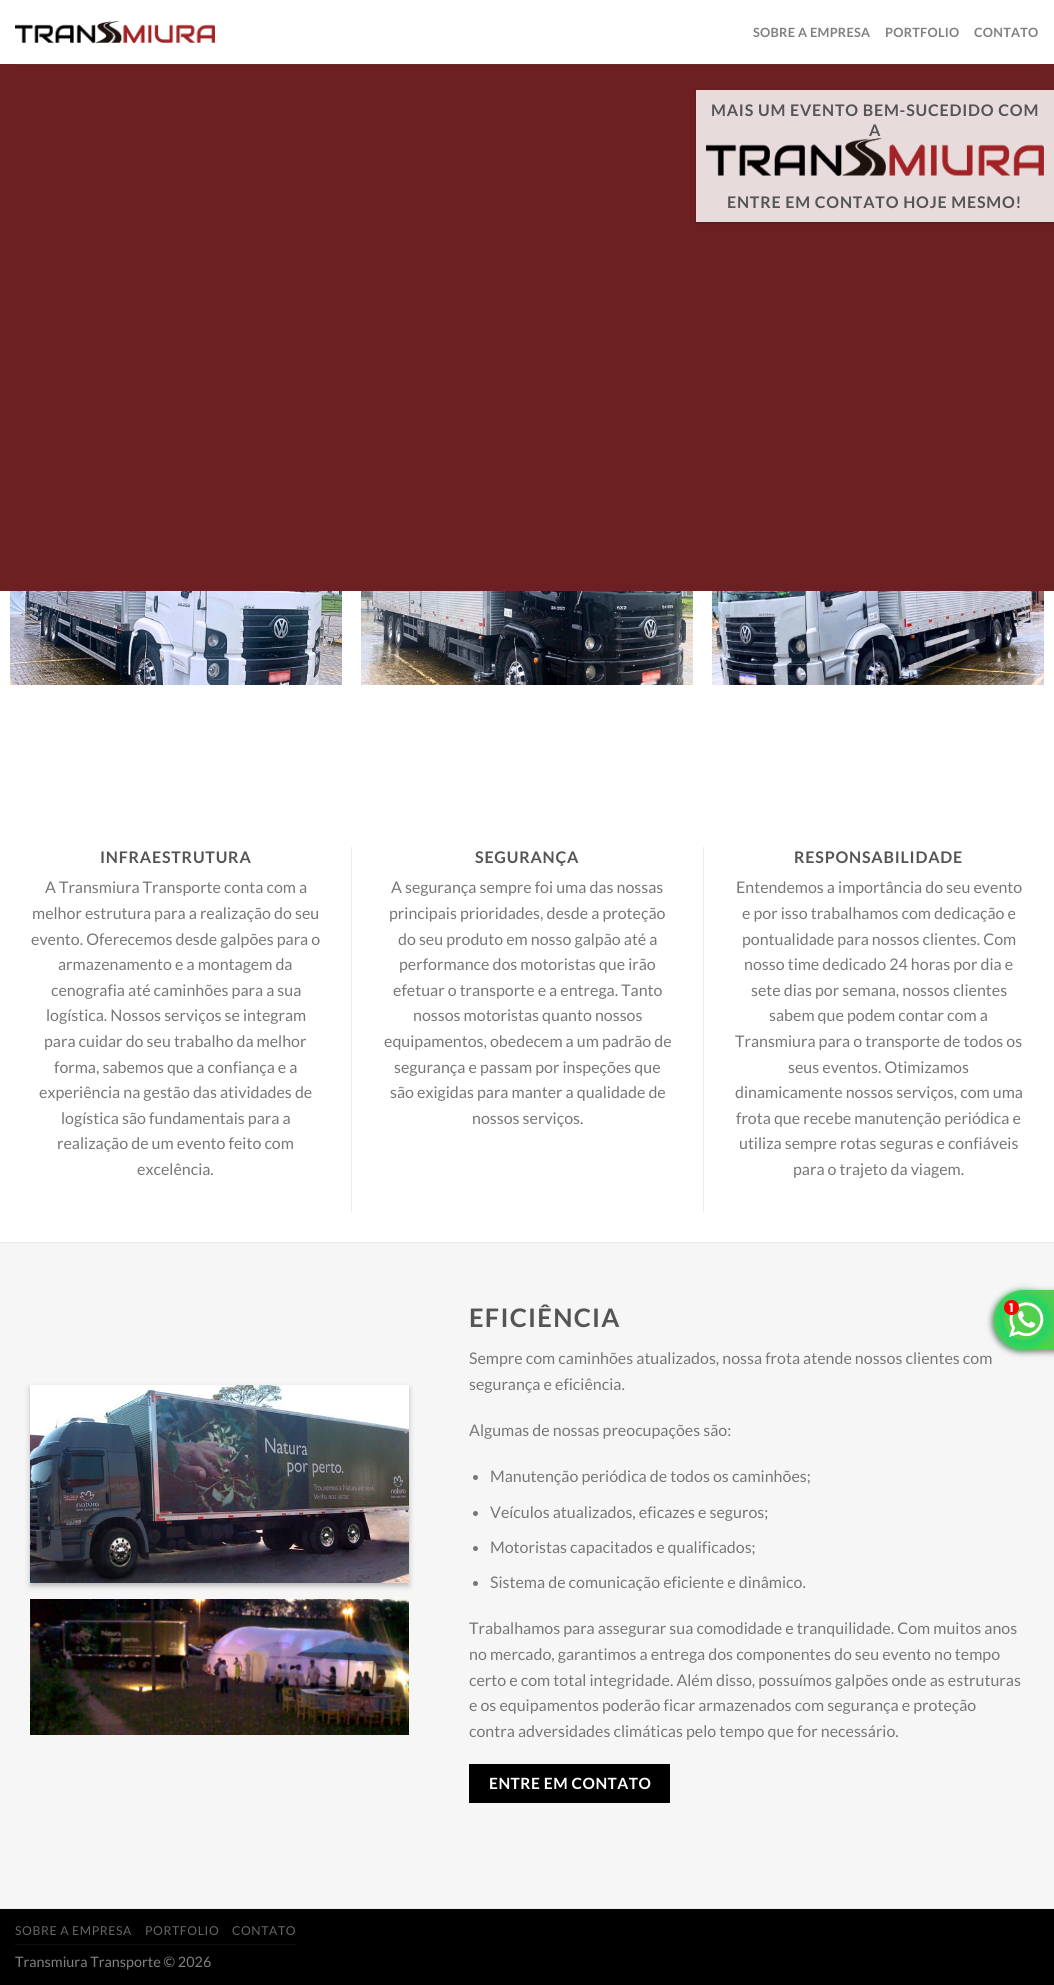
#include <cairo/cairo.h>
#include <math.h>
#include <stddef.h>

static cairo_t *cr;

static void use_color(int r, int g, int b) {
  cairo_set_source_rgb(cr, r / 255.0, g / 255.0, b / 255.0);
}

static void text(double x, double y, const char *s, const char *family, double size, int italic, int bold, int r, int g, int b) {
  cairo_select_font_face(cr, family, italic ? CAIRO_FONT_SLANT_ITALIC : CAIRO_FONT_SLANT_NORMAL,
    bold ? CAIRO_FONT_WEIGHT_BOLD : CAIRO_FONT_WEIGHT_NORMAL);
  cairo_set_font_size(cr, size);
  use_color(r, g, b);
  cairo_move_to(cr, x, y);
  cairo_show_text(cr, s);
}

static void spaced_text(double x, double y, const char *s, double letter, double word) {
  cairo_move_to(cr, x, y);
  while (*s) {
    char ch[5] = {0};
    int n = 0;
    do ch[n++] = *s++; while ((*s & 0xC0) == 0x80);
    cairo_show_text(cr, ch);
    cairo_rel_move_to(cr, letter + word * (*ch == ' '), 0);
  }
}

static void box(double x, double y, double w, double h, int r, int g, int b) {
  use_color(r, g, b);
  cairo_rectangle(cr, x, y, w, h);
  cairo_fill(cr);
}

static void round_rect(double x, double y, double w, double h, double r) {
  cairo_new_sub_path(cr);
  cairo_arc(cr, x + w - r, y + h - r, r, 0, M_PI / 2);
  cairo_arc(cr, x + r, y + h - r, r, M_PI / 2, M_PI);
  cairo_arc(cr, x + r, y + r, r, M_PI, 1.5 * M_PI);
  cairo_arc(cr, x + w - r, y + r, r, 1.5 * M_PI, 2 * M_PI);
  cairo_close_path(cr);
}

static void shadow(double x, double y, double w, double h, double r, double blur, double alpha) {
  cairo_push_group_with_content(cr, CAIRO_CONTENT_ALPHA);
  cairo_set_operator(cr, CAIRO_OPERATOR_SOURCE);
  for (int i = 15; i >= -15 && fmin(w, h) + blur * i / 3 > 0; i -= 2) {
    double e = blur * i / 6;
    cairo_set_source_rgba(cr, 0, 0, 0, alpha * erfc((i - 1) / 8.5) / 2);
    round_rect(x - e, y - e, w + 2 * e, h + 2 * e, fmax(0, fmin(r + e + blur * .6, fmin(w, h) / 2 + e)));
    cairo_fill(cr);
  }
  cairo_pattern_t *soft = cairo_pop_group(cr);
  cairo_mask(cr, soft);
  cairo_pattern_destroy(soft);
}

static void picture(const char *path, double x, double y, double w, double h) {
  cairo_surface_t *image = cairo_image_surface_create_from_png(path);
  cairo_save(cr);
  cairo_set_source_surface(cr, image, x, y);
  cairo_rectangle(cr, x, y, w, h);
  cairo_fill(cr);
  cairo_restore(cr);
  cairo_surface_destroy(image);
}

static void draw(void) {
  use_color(255, 255, 255);
  cairo_paint(cr);
  picture("img_01.png", 15, 21, 200, 22);
  box(0, 64, 1054, 527, 109, 32, 34);
  box(15, 64, 1024, 1, 110, 41, 43);
  use_color(0, 0, 0);
  shadow(696, 91, 358, 132, 0, 1, 0.24);
  box(696, 90, 358, 132, 232, 219, 220);
  picture("img_02.png", 706, 138, 338, 38);
  picture("img_03.png", 10, 591, 332, 94);
  picture("img_04.png", 361, 591, 332, 94);
  picture("img_05.png", 712, 591, 332, 94);
  box(351, 847, 1, 365, 236, 236, 236);
  box(703, 847, 1, 365, 236, 236, 236);
  box(0, 1242, 1054, 1, 236, 236, 236);
  box(0, 1908, 1054, 1, 236, 236, 236);
  box(0, 1243, 1054, 665, 246, 246, 246);
  use_color(0, 0, 0);
  shadow(30, 1388, 379, 198, 0, 3, 0.23);
  shadow(34, 1392, 371, 190, 0, 3, 0.16);
  picture("img_06.png", 30, 1385, 379, 198);
  picture("img_07.png", 30, 1599, 379, 136);
  use_color(119, 119, 119);
  cairo_arc(cr, 475.5, 1477.5, 2.5, 0, 2 * M_PI);
  cairo_fill(cr);
  cairo_arc(cr, 475.5, 1513.5, 2.5, 0, 2 * M_PI);
  cairo_fill(cr);
  cairo_arc(cr, 475.5, 1548.5, 2.5, 0, 2 * M_PI);
  cairo_fill(cr);
  cairo_arc(cr, 475.5, 1583.5, 2.5, 0, 2 * M_PI);
  cairo_fill(cr);
  box(469, 1764, 201, 39, 0, 0, 0);
  box(0, 1909, 1054, 76, 0, 0, 0);
  box(15, 1944, 281, 1, 16, 16, 16);
  use_color(112, 112, 112);
  shadow(992, 1292, 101, 60, 30, 3, 0.87);
  use_color(82, 208, 77);
  cairo_new_path(cr);
  cairo_move_to(cr, 1024, 1290);
  cairo_line_to(cr, 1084, 1290);
  cairo_line_to(cr, 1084, 1350);
  cairo_line_to(cr, 1024, 1350);
  cairo_curve_to(cr, 1007.5, 1350, 994, 1336.5, 994, 1320);
  cairo_curve_to(cr, 994, 1303.5, 1007.5, 1290, 1024, 1290);
  cairo_close_path(cr);
  cairo_fill(cr);
  cairo_save(cr);
  cairo_set_fill_rule(cr, CAIRO_FILL_RULE_EVEN_ODD);
  cairo_new_path(cr);
  cairo_move_to(cr, 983, 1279);
  cairo_line_to(cr, 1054, 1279);
  cairo_line_to(cr, 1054, 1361);
  cairo_line_to(cr, 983, 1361);
  cairo_close_path(cr);
  cairo_move_to(cr, 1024, 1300);
  cairo_curve_to(cr, 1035, 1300, 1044, 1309, 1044, 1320);
  cairo_curve_to(cr, 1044, 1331, 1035, 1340, 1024, 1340);
  cairo_curve_to(cr, 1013, 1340, 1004, 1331, 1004, 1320);
  cairo_curve_to(cr, 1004, 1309, 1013, 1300, 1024, 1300);
  cairo_close_path(cr);
  cairo_clip(cr);
  use_color(37, 211, 102);
  shadow(996, 1292, 56, 56, 28, 4, 1);
  cairo_restore(cr);
  picture("img_08.png", 1009, 1302, 35, 35);
  use_color(255, 0, 0);
  cairo_arc(cr, 1011.5, 1307.5, 7.5, 0, 2 * M_PI);
  cairo_fill(cr);
  cairo_select_font_face(cr, "Lato", CAIRO_FONT_SLANT_NORMAL, CAIRO_FONT_WEIGHT_BOLD);
  cairo_set_font_size(cr, 12.75);
  use_color(128, 128, 128);
  spaced_text(753, 37, "SOBRE A EMPRESA", 0.25, 0);
  spaced_text(885, 37, "PORTFOLIO", 0.25, 0);
  spaced_text(974, 37, "CONTATO", 0.25, 0);
  cairo_set_font_size(cr, 16);
  use_color(85, 85, 85);
  spaced_text(711, 116, "MAIS UM EVENTO BEM-SUCEDIDO COM", 0.8, 0);
  spaced_text(869, 136, "A", 0.8, 0);
  spaced_text(727, 208, "ENTRE EM CONTATO HOJE MESMO!", 0.8, 0);
  spaced_text(100, 863, "INFRAESTRUTURA", 0.8, 0);
  text(45, 893, "A Transmiura Transporte conta com a", "Lato", 16, 0, 0, 119, 119, 119);
  text(32, 919, "melhor estrutura para a realização do seu", "Lato", 16, 0, 0, 119, 119, 119);
  text(31, 945, "evento. Oferecemos desde galpões para o", "Lato", 16, 0, 0, 119, 119, 119);
  text(58, 970, "armazenamento e a montagem da", "Lato", 16, 0, 0, 119, 119, 119);
  text(51, 996, "cenografia até caminhões para a sua", "Lato", 16, 0, 0, 119, 119, 119);
  text(46, 1021, "logística. Nossos serviços se integram", "Lato", 16, 0, 0, 119, 119, 119);
  text(44, 1047, "para cuidar do seu trabalho da melhor", "Lato", 16, 0, 0, 119, 119, 119);
  text(54, 1073, "forma, sabemos que a confiança e a", "Lato", 16, 0, 0, 119, 119, 119);
  text(39, 1098, "experiência na gestão das atividades de", "Lato", 16, 0, 0, 119, 119, 119);
  text(61, 1124, "logística são fundamentais para a", "Lato", 16, 0, 0, 119, 119, 119);
  text(57, 1149, "realização de um evento feito com", "Lato", 16, 0, 0, 119, 119, 119);
  text(137, 1175, "excelência.", "Lato", 16, 0, 0, 119, 119, 119);
  cairo_select_font_face(cr, "Lato", CAIRO_FONT_SLANT_NORMAL, CAIRO_FONT_WEIGHT_BOLD);
  use_color(85, 85, 85);
  spaced_text(475, 863, "SEGURANÇA", 0.8, 0);
  text(391, 893, "A segurança sempre foi uma das nossas", "Lato", 16, 0, 0, 119, 119, 119);
  text(389, 919, "principais prioridades, desde a proteção", "Lato", 16, 0, 0, 119, 119, 119);
  text(398, 945, "do seu produto em nosso galpão até a", "Lato", 16, 0, 0, 119, 119, 119);
  text(399, 970, "performance dos motoristas que irão", "Lato", 16, 0, 0, 119, 119, 119);
  text(393, 996, "efetuar o transporte e a entrega. Tanto", "Lato", 16, 0, 0, 119, 119, 119);
  text(413, 1021, "nossos motoristas quanto nossos", "Lato", 16, 0, 0, 119, 119, 119);
  text(384, 1047, "equipamentos, obedecem a um padrão de", "Lato", 16, 0, 0, 119, 119, 119);
  text(394, 1073, "segurança e passam por inspeções que", "Lato", 16, 0, 0, 119, 119, 119);
  text(390, 1098, "são exigidas para manter a qualidade de", "Lato", 16, 0, 0, 119, 119, 119);
  text(472, 1124, "nossos serviços.", "Lato", 16, 0, 0, 119, 119, 119);
  cairo_select_font_face(cr, "Lato", CAIRO_FONT_SLANT_NORMAL, CAIRO_FONT_WEIGHT_BOLD);
  use_color(85, 85, 85);
  spaced_text(794, 863, "RESPONSABILIDADE", 0.8, 0);
  text(736, 893, "Entendemos a importância do seu evento", "Lato", 16, 0, 0, 119, 119, 119);
  text(742, 919, "e por isso trabalhamos com dedicação e", "Lato", 16, 0, 0, 119, 119, 119);
  text(742, 945, "pontualidade para nossos clientes. Com", "Lato", 16, 0, 0, 119, 119, 119);
  text(744, 970, "nosso time dedicado 24 horas por dia e", "Lato", 16, 0, 0, 119, 119, 119);
  text(751, 996, "sete dias por semana, nossos clientes", "Lato", 16, 0, 0, 119, 119, 119);
  text(769, 1021, "sabem que podem contar com a", "Lato", 16, 0, 0, 119, 119, 119);
  text(735, 1047, "Transmiura para o transporte de todos os", "Lato", 16, 0, 0, 119, 119, 119);
  text(788, 1073, "seus eventos. Otimizamos", "Lato", 16, 0, 0, 119, 119, 119);
  text(735, 1098, "dinamicamente nossos serviços, com uma", "Lato", 16, 0, 0, 119, 119, 119);
  text(736, 1124, "frota que recebe manutenção periódica e", "Lato", 16, 0, 0, 119, 119, 119);
  text(739, 1149, "utiliza sempre rotas seguras e confiáveis", "Lato", 16, 0, 0, 119, 119, 119);
  text(793, 1175, "para o trajeto da viagem.", "Lato", 16, 0, 0, 119, 119, 119);
  cairo_select_font_face(cr, "Lato", CAIRO_FONT_SLANT_NORMAL, CAIRO_FONT_WEIGHT_BOLD);
  cairo_set_font_size(cr, 25.5);
  use_color(85, 85, 85);
  spaced_text(469, 1327, "EFICIÊNCIA", 1.25, 0);
  text(469, 1364, "Sempre com caminhões atualizados, nossa frota atende nossos clientes com", "Lato", 16, 0, 0, 119, 119, 119);
  text(469, 1390, "segurança e eficiência.", "Lato", 16, 0, 0, 119, 119, 119);
  text(469, 1436, "Algumas de nossas preocupações são:", "Lato", 16, 0, 0, 119, 119, 119);
  text(490, 1482, "Manutenção periódica de todos os caminhões;", "Lato", 16, 0, 0, 119, 119, 119);
  text(490, 1518, "Veículos atualizados, eficazes e seguros;", "Lato", 16, 0, 0, 119, 119, 119);
  text(490, 1553, "Motoristas capacitados e qualificados;", "Lato", 16, 0, 0, 119, 119, 119);
  text(490, 1588, "Sistema de comunicação eficiente e dinâmico.", "Lato", 16, 0, 0, 119, 119, 119);
  text(469, 1634, "Trabalhamos para assegurar sua comodidade e tranquilidade. Com muitos anos", "Lato", 16, 0, 0, 119, 119, 119);
  text(469, 1660, "no mercado, garantimos a entrega dos componentes do seu evento no tempo", "Lato", 16, 0, 0, 119, 119, 119);
  text(469, 1686, "certo e com total integridade. Além disso, possuímos galpões onde as estruturas", "Lato", 16, 0, 0, 119, 119, 119);
  text(469, 1711, "e os equipamentos poderão ficar armazenados com segurança e proteção", "Lato", 16, 0, 0, 119, 119, 119);
  text(469, 1737, "contra adversidades climáticas pelo tempo que for necessário.", "Lato", 16, 0, 0, 119, 119, 119);
  cairo_select_font_face(cr, "Lato", CAIRO_FONT_SLANT_NORMAL, CAIRO_FONT_WEIGHT_BOLD);
  cairo_set_font_size(cr, 15.5);
  use_color(255, 255, 255);
  spaced_text(489, 1789, "ENTRE EM CONTATO", 0.5, 0);
  cairo_select_font_face(cr, "Lato", CAIRO_FONT_SLANT_NORMAL, CAIRO_FONT_WEIGHT_NORMAL);
  cairo_set_font_size(cr, 12.25);
  use_color(102, 102, 102);
  spaced_text(15, 1935, "SOBRE A EMPRESA", 0.6, 0);
  spaced_text(145, 1935, "PORTFOLIO", 0.6, 0);
  spaced_text(232, 1935, "CONTATO", 0.6, 0);
  text(15, 1967, "Transmiura Transporte © 2026", "Lato", 14.4, 0, 0, 128, 128, 128);
  text(1009, 1312, "1", "Poppins", 12, 0, 1, 255, 255, 255);
}

int main(void) {
  cairo_surface_t *surface = cairo_image_surface_create(CAIRO_FORMAT_RGB24, 1054, 1985);
  cr = cairo_create(surface);
  cairo_font_options_t *options = cairo_font_options_create();
  cairo_font_options_set_hint_metrics(options, CAIRO_HINT_METRICS_OFF);
  cairo_font_options_set_hint_style(options, CAIRO_HINT_STYLE_NONE);
  cairo_set_font_options(cr, options);
  cairo_set_miter_limit(cr, 4);
  draw();
  cairo_surface_write_to_png(surface, "out.png");
  cairo_font_options_destroy(options);
  cairo_destroy(cr);
  cairo_surface_destroy(surface);
  return 0;
}
